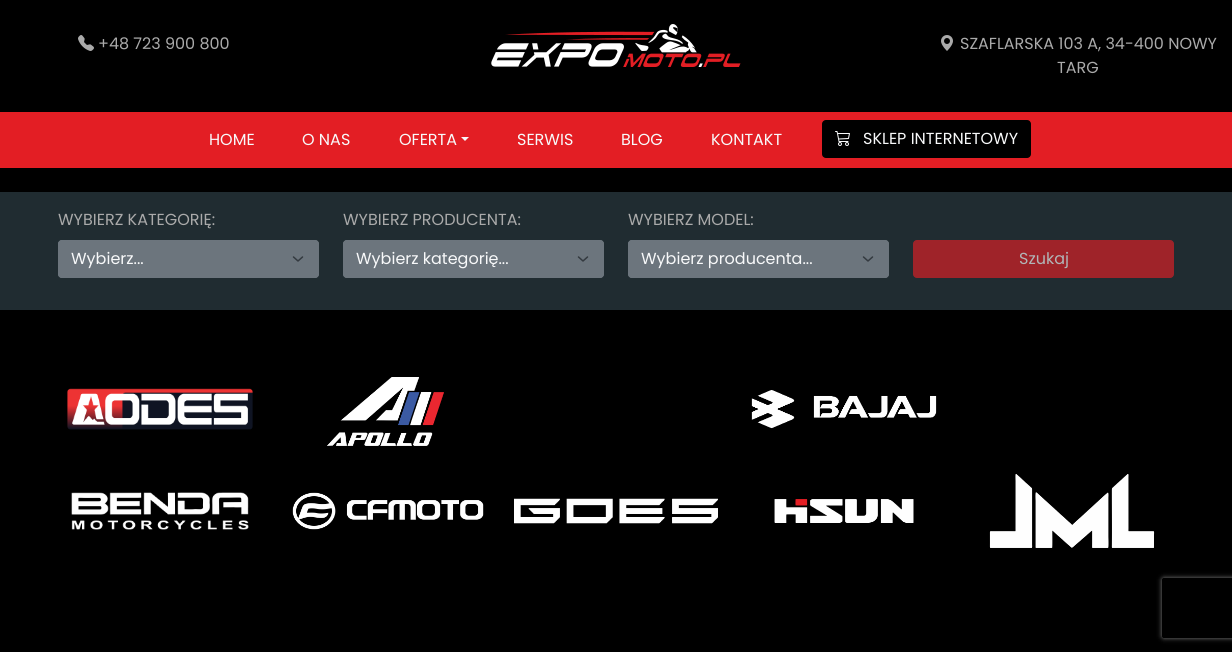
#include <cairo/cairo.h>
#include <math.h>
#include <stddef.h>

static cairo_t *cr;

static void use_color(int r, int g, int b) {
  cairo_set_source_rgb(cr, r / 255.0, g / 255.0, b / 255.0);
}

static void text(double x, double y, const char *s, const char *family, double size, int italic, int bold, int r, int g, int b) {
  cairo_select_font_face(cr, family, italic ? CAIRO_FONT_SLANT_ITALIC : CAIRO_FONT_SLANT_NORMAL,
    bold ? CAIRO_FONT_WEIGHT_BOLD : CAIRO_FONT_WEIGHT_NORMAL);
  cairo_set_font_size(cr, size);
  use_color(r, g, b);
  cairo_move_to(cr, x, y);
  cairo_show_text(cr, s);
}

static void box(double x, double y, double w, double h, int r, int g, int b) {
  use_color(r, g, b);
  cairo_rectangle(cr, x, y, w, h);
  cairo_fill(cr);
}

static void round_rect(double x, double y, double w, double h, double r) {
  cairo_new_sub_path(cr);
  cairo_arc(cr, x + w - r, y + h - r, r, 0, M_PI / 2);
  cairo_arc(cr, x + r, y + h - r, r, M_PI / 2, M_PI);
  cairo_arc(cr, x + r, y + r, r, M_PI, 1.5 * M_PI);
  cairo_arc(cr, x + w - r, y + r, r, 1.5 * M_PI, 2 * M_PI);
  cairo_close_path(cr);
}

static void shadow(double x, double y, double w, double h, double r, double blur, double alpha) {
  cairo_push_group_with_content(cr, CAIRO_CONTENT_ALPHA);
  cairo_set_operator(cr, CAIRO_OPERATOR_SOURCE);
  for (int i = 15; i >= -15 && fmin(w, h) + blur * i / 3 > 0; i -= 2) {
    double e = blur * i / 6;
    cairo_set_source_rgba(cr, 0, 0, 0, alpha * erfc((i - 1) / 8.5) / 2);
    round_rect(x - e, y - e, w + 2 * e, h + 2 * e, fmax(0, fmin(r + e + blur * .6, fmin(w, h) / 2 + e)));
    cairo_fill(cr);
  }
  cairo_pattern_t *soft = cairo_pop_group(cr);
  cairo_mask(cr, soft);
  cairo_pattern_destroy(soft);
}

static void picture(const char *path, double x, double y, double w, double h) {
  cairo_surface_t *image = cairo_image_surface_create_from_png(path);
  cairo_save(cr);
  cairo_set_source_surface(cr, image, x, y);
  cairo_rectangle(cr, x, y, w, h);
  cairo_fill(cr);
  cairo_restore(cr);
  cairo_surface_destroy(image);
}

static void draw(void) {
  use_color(0, 0, 0);
  cairo_paint(cr);
  picture("img_01.png", 78, 35, 16, 16);
  picture("img_02.png", 491, 24, 250, 43);
  picture("img_03.png", 941, 35, 12, 16);
  box(0, 112, 1232, 56, 227, 30, 36);
  use_color(248, 249, 250);
  cairo_new_path(cr);
  cairo_move_to(cr, 461, 137);
  cairo_line_to(cr, 469, 137);
  cairo_line_to(cr, 465, 141);
  cairo_close_path(cr);
  cairo_fill(cr);
  use_color(0, 0, 0);
  round_rect(822, 120, 209, 38, 4);
  cairo_fill(cr);
  picture("img_04.png", 835, 131, 15, 15);
  box(0, 192, 1232, 118, 32, 44, 49);
  use_color(108, 117, 125);
  round_rect(58, 240, 261, 38, 4);
  cairo_fill(cr);
  cairo_new_path(cr);
  cairo_move_to(cr, 293.5, 257);
  cairo_line_to(cr, 298, 261);
  cairo_line_to(cr, 302.5, 257);
  use_color(52, 58, 64);
  cairo_set_line_width(cr, 1.5);
  cairo_set_line_cap(cr, CAIRO_LINE_CAP_ROUND);
  cairo_set_line_join(cr, CAIRO_LINE_JOIN_ROUND);
  cairo_stroke(cr);
  round_rect(58.5, 240.5, 260, 37, 3.5);
  use_color(108, 117, 125);
  cairo_set_line_width(cr, 1);
  cairo_set_line_cap(cr, CAIRO_LINE_CAP_BUTT);
  cairo_set_line_join(cr, CAIRO_LINE_JOIN_MITER);
  cairo_stroke(cr);
  round_rect(343, 240, 261, 38, 4);
  cairo_fill(cr);
  cairo_new_path(cr);
  cairo_move_to(cr, 578.5, 257);
  cairo_line_to(cr, 583, 261);
  cairo_line_to(cr, 587.5, 257);
  use_color(52, 58, 64);
  cairo_set_line_width(cr, 1.5);
  cairo_set_line_cap(cr, CAIRO_LINE_CAP_ROUND);
  cairo_set_line_join(cr, CAIRO_LINE_JOIN_ROUND);
  cairo_stroke(cr);
  round_rect(343.5, 240.5, 260, 37, 3.5);
  use_color(108, 117, 125);
  cairo_set_line_width(cr, 1);
  cairo_set_line_cap(cr, CAIRO_LINE_CAP_BUTT);
  cairo_set_line_join(cr, CAIRO_LINE_JOIN_MITER);
  cairo_stroke(cr);
  round_rect(628, 240, 261, 38, 4);
  cairo_fill(cr);
  cairo_new_path(cr);
  cairo_move_to(cr, 863.5, 257);
  cairo_line_to(cr, 868, 261);
  cairo_line_to(cr, 872.5, 257);
  use_color(52, 58, 64);
  cairo_set_line_width(cr, 1.5);
  cairo_set_line_cap(cr, CAIRO_LINE_CAP_ROUND);
  cairo_set_line_join(cr, CAIRO_LINE_JOIN_ROUND);
  cairo_stroke(cr);
  round_rect(628.5, 240.5, 260, 37, 3.5);
  use_color(108, 117, 125);
  cairo_set_line_width(cr, 1);
  cairo_set_line_cap(cr, CAIRO_LINE_CAP_BUTT);
  cairo_set_line_join(cr, CAIRO_LINE_JOIN_MITER);
  cairo_stroke(cr);
  use_color(159, 35, 41);
  round_rect(913.5, 240.5, 260, 37, 3.5);
  cairo_fill_preserve(cr);
  cairo_stroke(cr);
  picture("img_05.png", 67, 388, 186, 42);
  picture("img_06.png", 327, 377, 117, 69);
  picture("img_07.png", 751, 390, 186, 39);
  picture("img_08.png", 71, 492, 178, 38);
  picture("img_09.png", 292, 492, 192, 38);
  picture("img_10.png", 514, 498, 204, 26);
  picture("img_11.png", 774, 499, 140, 24);
  picture("img_12.png", 989, 474, 166, 74);
  cairo_save(cr);
  cairo_set_fill_rule(cr, CAIRO_FILL_RULE_EVEN_ODD);
  cairo_new_path(cr);
  cairo_move_to(cr, 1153, 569);
  cairo_line_to(cr, 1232, 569);
  cairo_line_to(cr, 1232, 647);
  cairo_line_to(cr, 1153, 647);
  cairo_close_path(cr);
  cairo_move_to(cr, 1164, 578);
  cairo_line_to(cr, 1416, 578);
  cairo_curve_to(cr, 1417, 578, 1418, 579, 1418, 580);
  cairo_line_to(cr, 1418, 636);
  cairo_curve_to(cr, 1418, 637, 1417, 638, 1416, 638);
  cairo_line_to(cr, 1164, 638);
  cairo_curve_to(cr, 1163, 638, 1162, 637, 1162, 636);
  cairo_line_to(cr, 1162, 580);
  cairo_curve_to(cr, 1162, 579, 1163, 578, 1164, 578);
  cairo_close_path(cr);
  cairo_clip(cr);
  use_color(128, 128, 128);
  shadow(1162, 578, 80, 60, 2, 2.5, 1);
  cairo_restore(cr);
  text(98, 49, "+48 723 900 800", "Poppins", 16, 0, 0, 170, 170, 170);
  text(960, 49, "SZAFLARSKA 103 A, 34-400 NOWY", "Poppins", 16, 0, 0, 170, 170, 170);
  text(1057, 73, "TARG", "Poppins", 16, 0, 0, 170, 170, 170);
  text(209, 145, "HOME", "Poppins", 16, 0, 0, 248, 249, 250);
  text(302, 145, "O NAS", "Poppins", 16, 0, 0, 248, 249, 250);
  text(399, 145, "OFERTA", "Poppins", 16, 0, 0, 248, 249, 250);
  text(517, 145, "SERWIS", "Poppins", 16, 0, 0, 248, 249, 250);
  text(621, 145, "BLOG", "Poppins", 16, 0, 0, 248, 249, 250);
  text(711, 145, "KONTAKT", "Poppins", 16, 0, 0, 248, 249, 250);
  text(863, 144, "SKLEP INTERNETOWY", "Poppins", 16, 0, 0, 248, 249, 250);
  text(58, 225, "WYBIERZ KATEGORIĘ:", "Poppins", 16, 0, 0, 170, 170, 170);
  text(71, 264, "Wybierz...", "Poppins", 16, 0, 0, 248, 249, 250);
  text(343, 225, "WYBIERZ PRODUCENTA:", "Poppins", 16, 0, 0, 170, 170, 170);
  text(356, 264, "Wybierz kategorię...", "Poppins", 16, 0, 0, 248, 249, 250);
  text(628, 225, "WYBIERZ MODEL:", "Poppins", 16, 0, 0, 170, 170, 170);
  text(641, 264, "Wybierz producenta...", "Poppins", 16, 0, 0, 248, 249, 250);
  text(1019, 264, "Szukaj", "Poppins", 16, 0, 0, 177, 181, 183);
}

int main(void) {
  cairo_surface_t *surface = cairo_image_surface_create(CAIRO_FORMAT_RGB24, 1232, 652);
  cr = cairo_create(surface);
  cairo_font_options_t *options = cairo_font_options_create();
  cairo_font_options_set_hint_metrics(options, CAIRO_HINT_METRICS_OFF);
  cairo_font_options_set_hint_style(options, CAIRO_HINT_STYLE_NONE);
  cairo_set_font_options(cr, options);
  cairo_set_miter_limit(cr, 4);
  draw();
  cairo_surface_write_to_png(surface, "out.png");
  cairo_font_options_destroy(options);
  cairo_destroy(cr);
  cairo_surface_destroy(surface);
  return 0;
}
